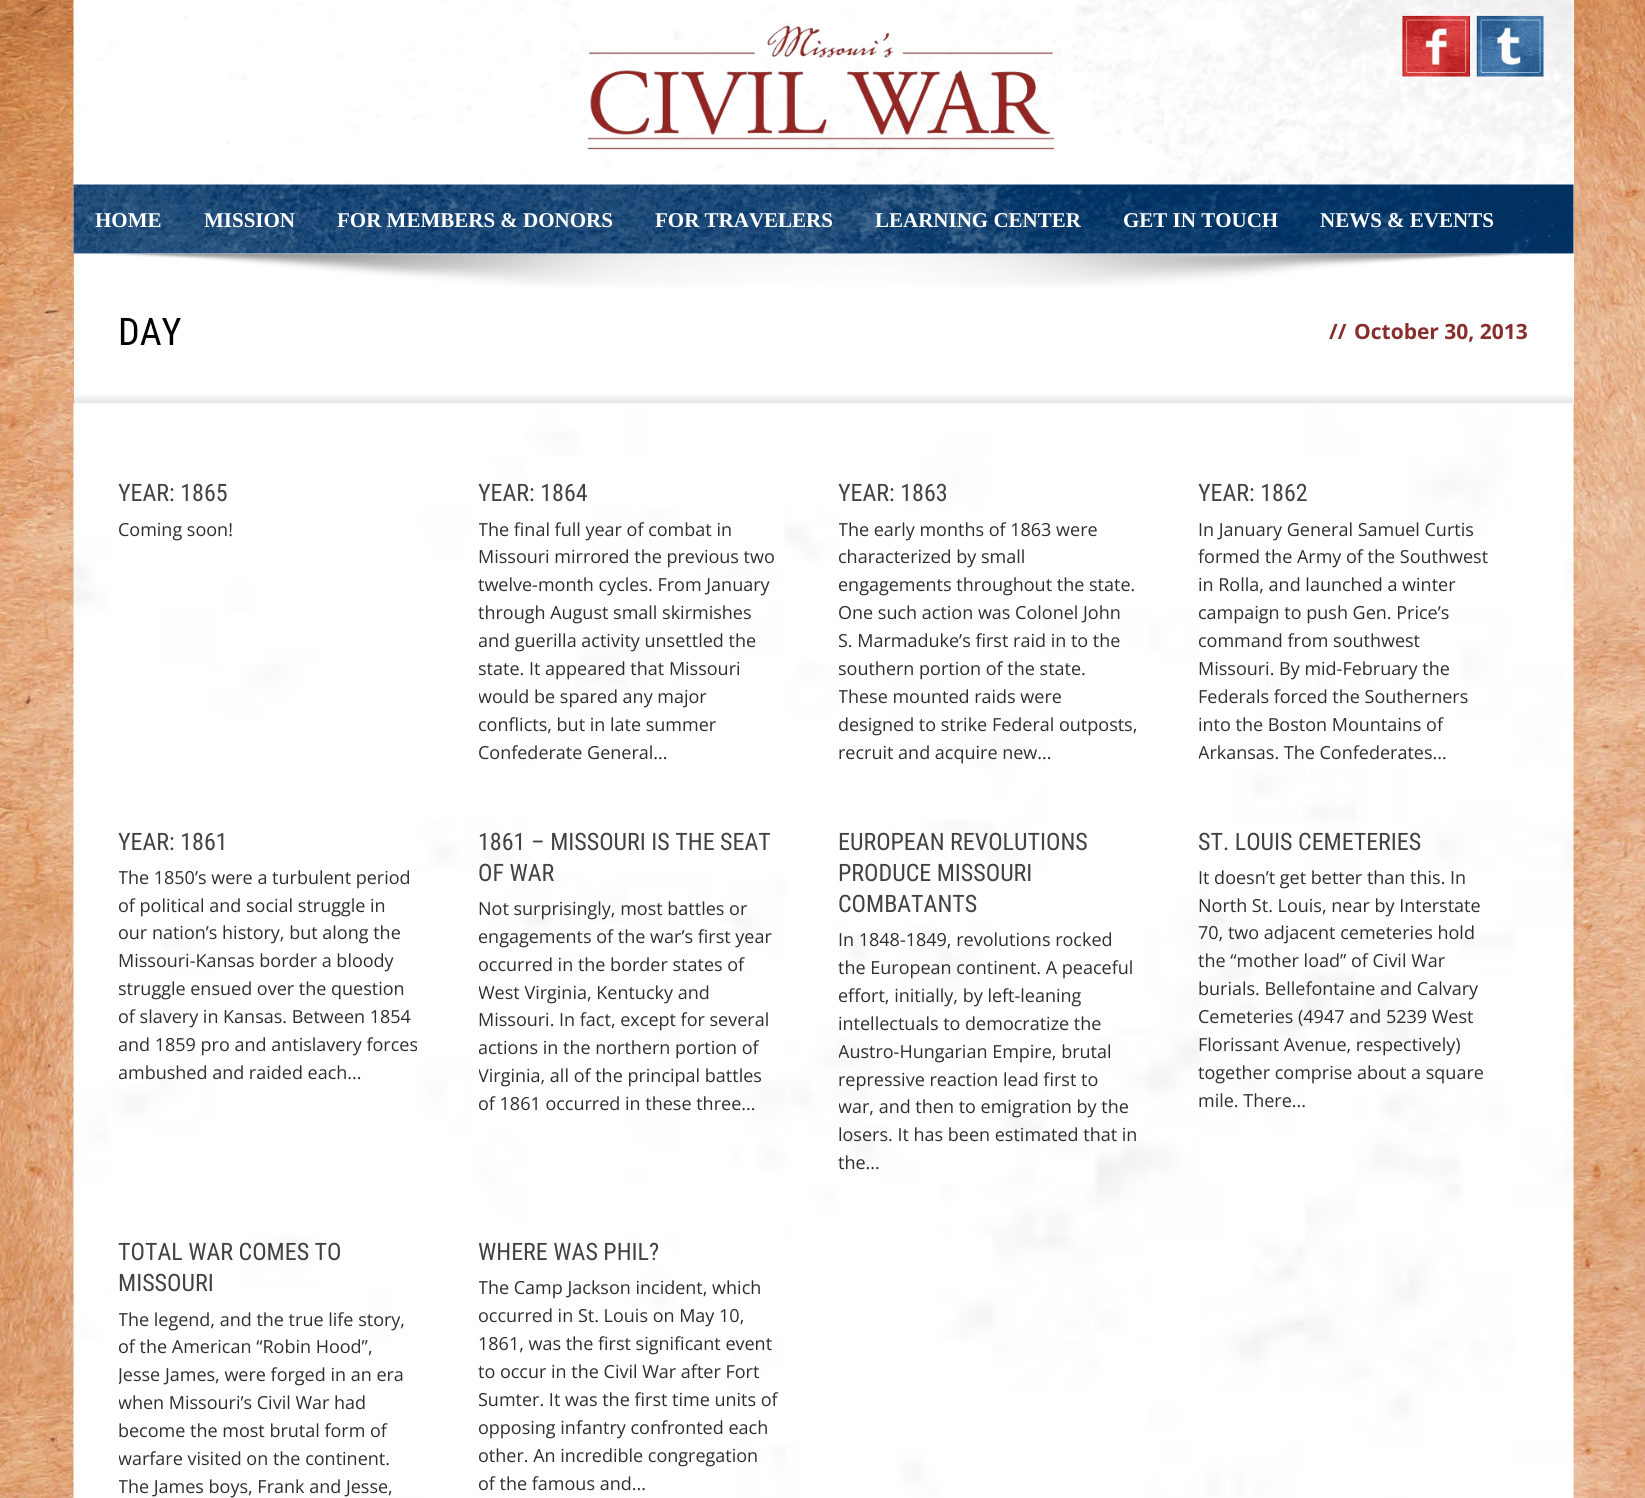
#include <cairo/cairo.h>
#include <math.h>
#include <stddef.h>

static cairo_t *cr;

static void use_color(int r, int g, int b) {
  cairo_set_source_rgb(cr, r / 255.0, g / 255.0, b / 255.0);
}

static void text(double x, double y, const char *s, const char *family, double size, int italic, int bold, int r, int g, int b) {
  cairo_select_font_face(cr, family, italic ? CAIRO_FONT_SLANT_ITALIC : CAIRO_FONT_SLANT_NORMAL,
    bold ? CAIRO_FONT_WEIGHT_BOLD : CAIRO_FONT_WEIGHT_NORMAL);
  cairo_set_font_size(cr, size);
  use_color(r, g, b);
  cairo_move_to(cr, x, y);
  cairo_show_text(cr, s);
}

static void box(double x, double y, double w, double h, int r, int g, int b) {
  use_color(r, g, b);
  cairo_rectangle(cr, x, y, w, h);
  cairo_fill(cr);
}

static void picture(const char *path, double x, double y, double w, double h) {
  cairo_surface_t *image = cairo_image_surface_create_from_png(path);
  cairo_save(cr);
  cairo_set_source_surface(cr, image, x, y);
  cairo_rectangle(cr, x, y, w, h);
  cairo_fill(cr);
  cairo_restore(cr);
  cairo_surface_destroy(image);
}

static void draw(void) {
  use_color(255, 255, 255);
  cairo_paint(cr);
  picture("img_01.png", 0, 0, 1645, 1498);
  box(74, 0, 1500, 404, 255, 255, 255);
  picture("img_02.png", 73, 0, 1501, 254);
  picture("img_03.png", 587, 25, 468, 125);
  picture("img_04.png", 1402, 15, 68, 62);
  picture("img_05.png", 1476, 15, 68, 62);
  picture("img_06.png", 73, 184, 1501, 70);
  picture("img_07.png", 73, 253, 1500, 87);
  picture("img_08.png", 109, 253, 1429, 34);
  picture("img_10.png", 73, 403, 1501, 1095);
  picture("img_09.png", 73, 395, 1501, 9);
  text(95, 227, "HOME", "Liberation Serif", 21, 0, 1, 255, 255, 255);
  text(204, 227, "MISSION", "Liberation Serif", 21, 0, 1, 255, 255, 255);
  text(337, 227, "FOR MEMBERS & DONORS", "Liberation Serif", 21, 0, 1, 255, 255, 255);
  text(655, 227, "FOR TRAVELERS", "Liberation Serif", 21, 0, 1, 255, 255, 255);
  text(875, 227, "LEARNING CENTER", "Liberation Serif", 21, 0, 1, 255, 255, 255);
  text(1123, 227, "GET IN TOUCH", "Liberation Serif", 21, 0, 1, 255, 255, 255);
  text(1320, 227, "NEWS & EVENTS", "Liberation Serif", 21, 0, 1, 255, 255, 255);
  text(118, 345, "DAY", "Roboto Condensed", 38, 0, 0, 0, 0, 0);
  text(1329, 339, "//", "Open Sans", 21, 0, 1, 136, 46, 45);
  text(1354, 339, "October 30, 2013", "Open Sans", 21, 0, 1, 136, 46, 45);
  text(118, 501, "YEAR: 1865", "Roboto Condensed", 24, 0, 0, 66, 66, 66);
  cairo_save(cr);
  cairo_rectangle(cr, 119, 479, 330, 66);
  cairo_clip(cr);
  text(118, 536, "Coming soon!", "Open Sans", 18, 0, 0, 46, 46, 46);
  cairo_restore(cr);
  text(478, 501, "YEAR: 1864", "Roboto Condensed", 24, 0, 0, 66, 66, 66);
  cairo_save(cr);
  cairo_rectangle(cr, 479, 479, 330, 288);
  cairo_clip(cr);
  text(478, 536, "The final full year of combat in", "Open Sans", 18, 0, 0, 46, 46, 46);
  cairo_restore(cr);
  text(478, 563, "Missouri mirrored the previous two", "Open Sans", 18, 0, 0, 46, 46, 46);
  text(478, 591, "twelve-month cycles. From January", "Open Sans", 18, 0, 0, 46, 46, 46);
  text(478, 619, "through August small skirmishes", "Open Sans", 18, 0, 0, 46, 46, 46);
  cairo_save(cr);
  cairo_rectangle(cr, 479, 479, 330, 288);
  cairo_clip(cr);
  text(478, 647, "and guerilla activity unsettled the", "Open Sans", 18, 0, 0, 46, 46, 46);
  text(478, 675, "state. It appeared that Missouri", "Open Sans", 18, 0, 0, 46, 46, 46);
  text(478, 703, "would be spared any major", "Open Sans", 18, 0, 0, 46, 46, 46);
  text(478, 731, "conflicts, but in late summer", "Open Sans", 18, 0, 0, 46, 46, 46);
  text(478, 759, "Confederate General...", "Open Sans", 18, 0, 0, 46, 46, 46);
  cairo_restore(cr);
  text(838, 501, "YEAR: 1863", "Roboto Condensed", 24, 0, 0, 66, 66, 66);
  cairo_save(cr);
  cairo_rectangle(cr, 839, 479, 330, 288);
  cairo_clip(cr);
  text(838, 536, "The early months of 1863 were", "Open Sans", 18, 0, 0, 46, 46, 46);
  text(838, 563, "characterized by small", "Open Sans", 18, 0, 0, 46, 46, 46);
  text(838, 591, "engagements throughout the state.", "Open Sans", 18, 0, 0, 46, 46, 46);
  text(838, 619, "One such action was Colonel John", "Open Sans", 18, 0, 0, 46, 46, 46);
  text(838, 647, "S. Marmaduke’s first raid in to the", "Open Sans", 18, 0, 0, 46, 46, 46);
  text(838, 675, "southern portion of the state.", "Open Sans", 18, 0, 0, 46, 46, 46);
  text(838, 703, "These mounted raids were", "Open Sans", 18, 0, 0, 46, 46, 46);
  text(838, 731, "designed to strike Federal outposts,", "Open Sans", 18, 0, 0, 46, 46, 46);
  cairo_restore(cr);
  text(838, 759, "recruit and acquire new...", "Open Sans", 18, 0, 0, 46, 46, 46);
  text(1198, 501, "YEAR: 1862", "Roboto Condensed", 24, 0, 0, 66, 66, 66);
  text(1198, 536, "In January General Samuel Curtis", "Open Sans", 18, 0, 0, 46, 46, 46);
  text(1198, 563, "formed the Army of the Southwest", "Open Sans", 18, 0, 0, 46, 46, 46);
  text(1198, 591, "in Rolla, and launched a winter", "Open Sans", 18, 0, 0, 46, 46, 46);
  cairo_save(cr);
  cairo_rectangle(cr, 1199, 479, 330, 288);
  cairo_clip(cr);
  text(1198, 619, "campaign to push Gen. Price’s", "Open Sans", 18, 0, 0, 46, 46, 46);
  text(1198, 647, "command from southwest", "Open Sans", 18, 0, 0, 46, 46, 46);
  cairo_restore(cr);
  text(1198, 675, "Missouri. By mid-February the", "Open Sans", 18, 0, 0, 46, 46, 46);
  text(1198, 703, "Federals forced the Southerners", "Open Sans", 18, 0, 0, 46, 46, 46);
  text(1198, 731, "into the Boston Mountains of", "Open Sans", 18, 0, 0, 46, 46, 46);
  cairo_save(cr);
  cairo_rectangle(cr, 1199, 479, 330, 288);
  cairo_clip(cr);
  text(1198, 759, "Arkansas. The Confederates...", "Open Sans", 18, 0, 0, 46, 46, 46);
  cairo_restore(cr);
  text(118, 850, "YEAR: 1861", "Roboto Condensed", 24, 0, 0, 66, 66, 66);
  cairo_save(cr);
  cairo_rectangle(cr, 119, 827, 330, 261);
  cairo_clip(cr);
  text(118, 884, "The 1850’s were a turbulent period", "Open Sans", 18, 0, 0, 46, 46, 46);
  text(118, 912, "of political and social struggle in", "Open Sans", 18, 0, 0, 46, 46, 46);
  text(118, 939, "our nation’s history, but along the", "Open Sans", 18, 0, 0, 46, 46, 46);
  cairo_restore(cr);
  text(118, 967, "Missouri-Kansas border a bloody", "Open Sans", 18, 0, 0, 46, 46, 46);
  cairo_save(cr);
  cairo_rectangle(cr, 119, 827, 330, 261);
  cairo_clip(cr);
  text(118, 995, "struggle ensued over the question", "Open Sans", 18, 0, 0, 46, 46, 46);
  text(118, 1023, "of slavery in Kansas. Between 1854", "Open Sans", 18, 0, 0, 46, 46, 46);
  text(118, 1051, "and 1859 pro and antislavery forces", "Open Sans", 18, 0, 0, 46, 46, 46);
  text(118, 1079, "ambushed and raided each...", "Open Sans", 18, 0, 0, 46, 46, 46);
  cairo_restore(cr);
  text(478, 850, "1861 – MISSOURI IS THE SEAT", "Roboto Condensed", 24, 0, 0, 66, 66, 66);
  text(478, 881, "OF WAR", "Roboto Condensed", 24, 0, 0, 66, 66, 66);
  text(478, 915, "Not surprisingly, most battles or", "Open Sans", 18, 0, 0, 46, 46, 46);
  cairo_save(cr);
  cairo_rectangle(cr, 479, 827, 330, 292);
  cairo_clip(cr);
  text(478, 943, "engagements of the war’s first year", "Open Sans", 18, 0, 0, 46, 46, 46);
  text(478, 971, "occurred in the border states of", "Open Sans", 18, 0, 0, 46, 46, 46);
  text(478, 999, "West Virginia, Kentucky and", "Open Sans", 18, 0, 0, 46, 46, 46);
  cairo_restore(cr);
  text(478, 1026, "Missouri. In fact, except for several", "Open Sans", 18, 0, 0, 46, 46, 46);
  cairo_save(cr);
  cairo_rectangle(cr, 479, 827, 330, 292);
  cairo_clip(cr);
  text(478, 1054, "actions in the northern portion of", "Open Sans", 18, 0, 0, 46, 46, 46);
  text(478, 1082, "Virginia, all of the principal battles", "Open Sans", 18, 0, 0, 46, 46, 46);
  text(478, 1110, "of 1861 occurred in these three...", "Open Sans", 18, 0, 0, 46, 46, 46);
  cairo_restore(cr);
  text(838, 850, "EUROPEAN REVOLUTIONS", "Roboto Condensed", 24, 0, 0, 66, 66, 66);
  text(838, 881, "PRODUCE MISSOURI", "Roboto Condensed", 24, 0, 0, 66, 66, 66);
  text(838, 912, "COMBATANTS", "Roboto Condensed", 24, 0, 0, 66, 66, 66);
  text(838, 946, "In 1848-1849, revolutions rocked", "Open Sans", 18, 0, 0, 46, 46, 46);
  text(838, 974, "the European continent. A peaceful", "Open Sans", 18, 0, 0, 46, 46, 46);
  cairo_save(cr);
  cairo_rectangle(cr, 839, 827, 330, 351);
  cairo_clip(cr);
  text(838, 1002, "effort, initially, by left-leaning", "Open Sans", 18, 0, 0, 46, 46, 46);
  cairo_restore(cr);
  text(838, 1030, "intellectuals to democratize the", "Open Sans", 18, 0, 0, 46, 46, 46);
  cairo_save(cr);
  cairo_rectangle(cr, 839, 827, 330, 351);
  cairo_clip(cr);
  text(838, 1058, "Austro-Hungarian Empire, brutal", "Open Sans", 18, 0, 0, 46, 46, 46);
  cairo_restore(cr);
  text(838, 1086, "repressive reaction lead first to", "Open Sans", 18, 0, 0, 46, 46, 46);
  cairo_save(cr);
  cairo_rectangle(cr, 839, 827, 330, 351);
  cairo_clip(cr);
  text(838, 1113, "war, and then to emigration by the", "Open Sans", 18, 0, 0, 46, 46, 46);
  cairo_restore(cr);
  text(838, 1141, "losers. It has been estimated that in", "Open Sans", 18, 0, 0, 46, 46, 46);
  text(838, 1169, "the...", "Open Sans", 18, 0, 0, 46, 46, 46);
  text(1198, 850, "ST. LOUIS CEMETERIES", "Roboto Condensed", 24, 0, 0, 66, 66, 66);
  text(1198, 884, "It doesn’t get better than this. In", "Open Sans", 18, 0, 0, 46, 46, 46);
  text(1198, 912, "North St. Louis, near by Interstate", "Open Sans", 18, 0, 0, 46, 46, 46);
  text(1198, 939, "70, two adjacent cemeteries hold", "Open Sans", 18, 0, 0, 46, 46, 46);
  text(1198, 967, "the “mother load” of Civil War", "Open Sans", 18, 0, 0, 46, 46, 46);
  text(1198, 995, "burials. Bellefontaine and Calvary", "Open Sans", 18, 0, 0, 46, 46, 46);
  cairo_save(cr);
  cairo_rectangle(cr, 1199, 827, 330, 288);
  cairo_clip(cr);
  text(1198, 1023, "Cemeteries (4947 and 5239 West", "Open Sans", 18, 0, 0, 46, 46, 46);
  cairo_restore(cr);
  text(1198, 1051, "Florissant Avenue, respectively)", "Open Sans", 18, 0, 0, 46, 46, 46);
  text(1198, 1079, "together comprise about a square", "Open Sans", 18, 0, 0, 46, 46, 46);
  text(1198, 1107, "mile. There...", "Open Sans", 18, 0, 0, 46, 46, 46);
  text(118, 1260, "TOTAL WAR COMES TO", "Roboto Condensed", 24, 0, 0, 66, 66, 66);
  text(118, 1291, "MISSOURI", "Roboto Condensed", 24, 0, 0, 66, 66, 66);
  cairo_save(cr);
  cairo_rectangle(cr, 119, 1238, 330, 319);
  cairo_clip(cr);
  text(118, 1326, "The legend, and the true life story,", "Open Sans", 18, 0, 0, 46, 46, 46);
  text(118, 1353, "of the American “Robin Hood”,", "Open Sans", 18, 0, 0, 46, 46, 46);
  text(118, 1381, "Jesse James, were forged in an era", "Open Sans", 18, 0, 0, 46, 46, 46);
  text(118, 1409, "when Missouri’s Civil War had", "Open Sans", 18, 0, 0, 46, 46, 46);
  cairo_restore(cr);
  text(118, 1437, "become the most brutal form of", "Open Sans", 18, 0, 0, 46, 46, 46);
  cairo_save(cr);
  cairo_rectangle(cr, 119, 1238, 330, 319);
  cairo_clip(cr);
  text(118, 1465, "warfare visited on the continent.", "Open Sans", 18, 0, 0, 46, 46, 46);
  text(118, 1493, "The James boys, Frank and Jesse,", "Open Sans", 18, 0, 0, 46, 46, 46);
  cairo_restore(cr);
  text(478, 1260, "WHERE WAS PHIL?", "Roboto Condensed", 24, 0, 0, 66, 66, 66);
  cairo_save(cr);
  cairo_rectangle(cr, 479, 1238, 330, 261);
  cairo_clip(cr);
  text(478, 1294, "The Camp Jackson incident, which", "Open Sans", 18, 0, 0, 46, 46, 46);
  text(478, 1322, "occurred in St. Louis on May 10,", "Open Sans", 18, 0, 0, 46, 46, 46);
  cairo_restore(cr);
  text(478, 1350, "1861, was the first significant event", "Open Sans", 18, 0, 0, 46, 46, 46);
  text(478, 1378, "to occur in the Civil War after Fort", "Open Sans", 18, 0, 0, 46, 46, 46);
  cairo_save(cr);
  cairo_rectangle(cr, 479, 1238, 330, 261);
  cairo_clip(cr);
  text(478, 1406, "Sumter. It was the first time units of", "Open Sans", 18, 0, 0, 46, 46, 46);
  text(478, 1434, "opposing infantry confronted each", "Open Sans", 18, 0, 0, 46, 46, 46);
  text(478, 1462, "other. An incredible congregation", "Open Sans", 18, 0, 0, 46, 46, 46);
  text(478, 1490, "of the famous and...", "Open Sans", 18, 0, 0, 46, 46, 46);
  cairo_restore(cr);
}

int main(void) {
  cairo_surface_t *surface = cairo_image_surface_create(CAIRO_FORMAT_RGB24, 1645, 1498);
  cr = cairo_create(surface);
  cairo_font_options_t *options = cairo_font_options_create();
  cairo_font_options_set_hint_metrics(options, CAIRO_HINT_METRICS_OFF);
  cairo_font_options_set_hint_style(options, CAIRO_HINT_STYLE_NONE);
  cairo_set_font_options(cr, options);
  cairo_set_miter_limit(cr, 4);
  draw();
  cairo_surface_write_to_png(surface, "out.png");
  cairo_font_options_destroy(options);
  cairo_destroy(cr);
  cairo_surface_destroy(surface);
  return 0;
}
